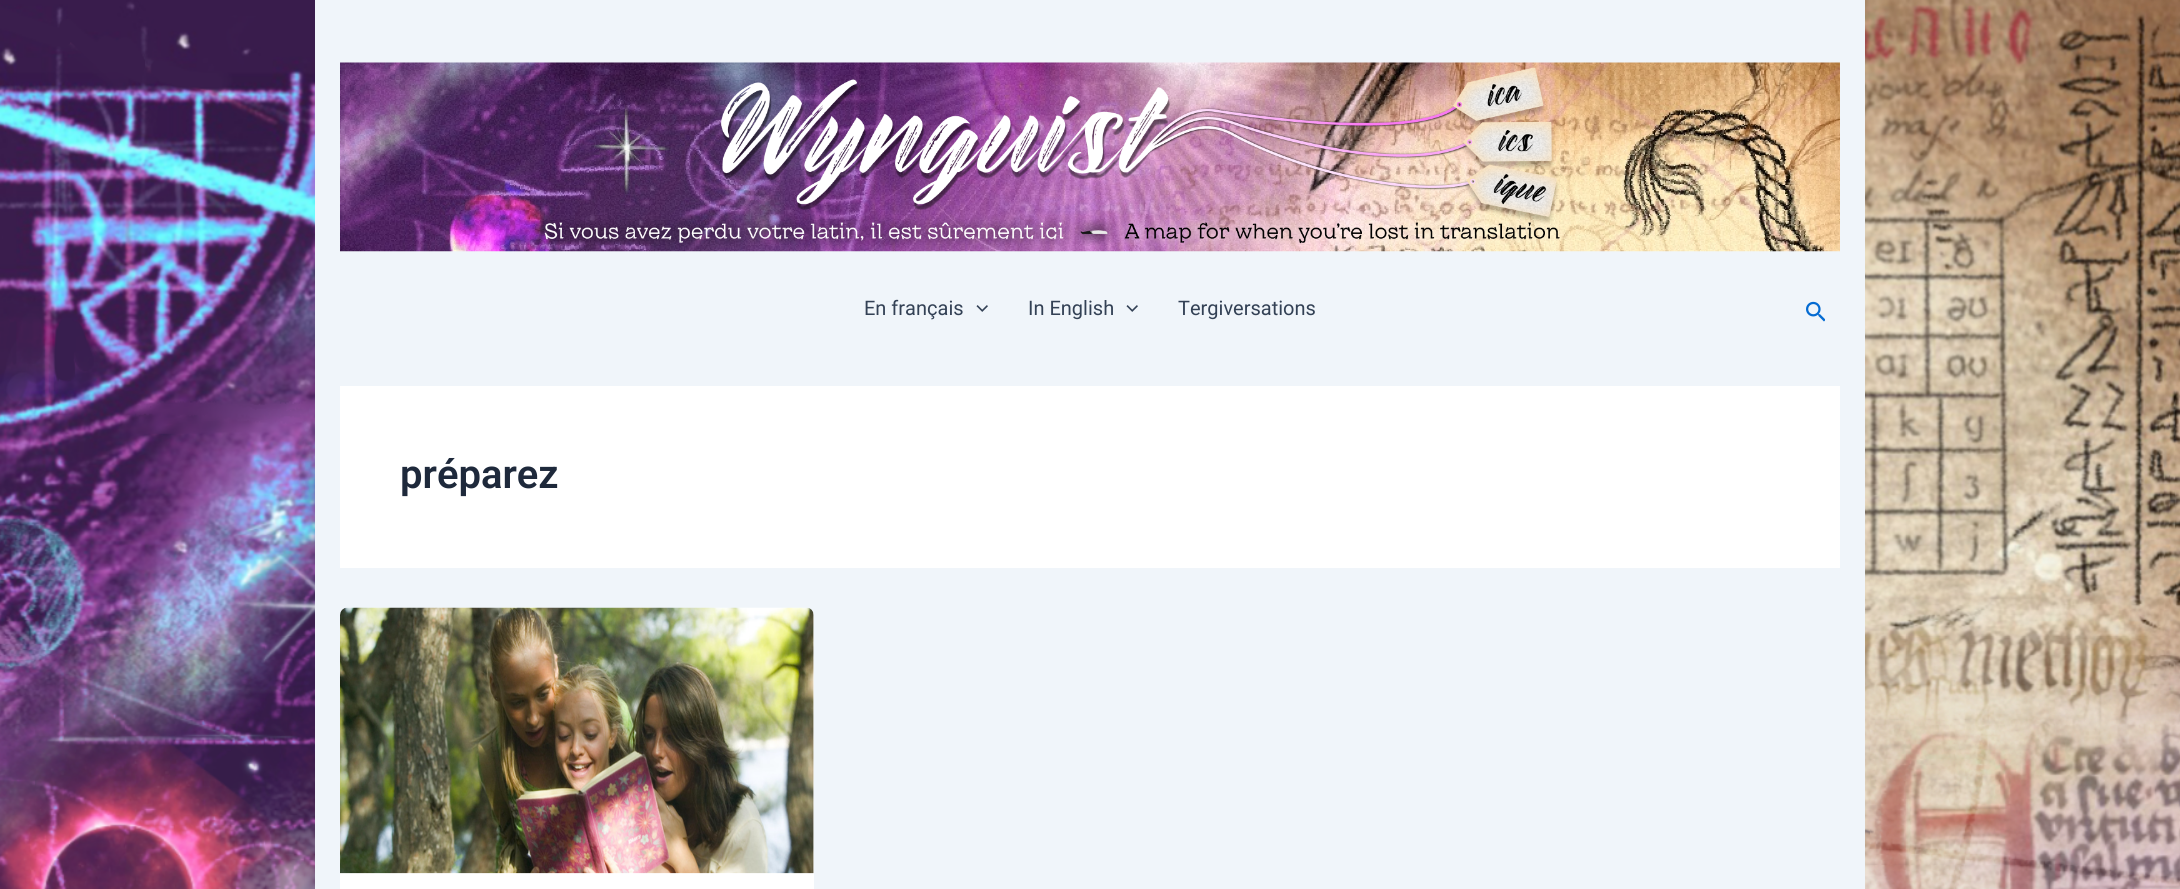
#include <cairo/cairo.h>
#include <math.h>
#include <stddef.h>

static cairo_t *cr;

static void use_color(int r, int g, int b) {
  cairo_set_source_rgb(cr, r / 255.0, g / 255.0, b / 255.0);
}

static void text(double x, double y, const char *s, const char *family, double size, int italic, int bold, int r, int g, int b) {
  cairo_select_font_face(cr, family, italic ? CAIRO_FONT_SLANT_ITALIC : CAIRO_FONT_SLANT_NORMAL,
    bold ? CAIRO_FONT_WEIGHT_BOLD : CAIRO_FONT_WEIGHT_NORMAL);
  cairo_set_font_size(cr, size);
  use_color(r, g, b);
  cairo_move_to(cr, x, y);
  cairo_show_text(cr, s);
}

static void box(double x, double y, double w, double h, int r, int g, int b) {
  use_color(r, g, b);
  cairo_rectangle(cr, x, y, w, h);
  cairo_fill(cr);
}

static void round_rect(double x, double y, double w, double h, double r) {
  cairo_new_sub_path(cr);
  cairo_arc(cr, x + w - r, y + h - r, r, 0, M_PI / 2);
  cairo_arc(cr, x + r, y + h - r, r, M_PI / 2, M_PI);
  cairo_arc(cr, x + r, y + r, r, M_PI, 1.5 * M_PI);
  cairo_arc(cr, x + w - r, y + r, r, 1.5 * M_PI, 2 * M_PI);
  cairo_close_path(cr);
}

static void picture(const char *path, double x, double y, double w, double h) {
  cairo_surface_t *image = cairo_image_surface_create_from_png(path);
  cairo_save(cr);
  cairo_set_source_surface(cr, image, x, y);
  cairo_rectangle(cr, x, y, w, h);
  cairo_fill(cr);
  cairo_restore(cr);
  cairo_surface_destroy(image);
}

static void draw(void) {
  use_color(255, 255, 255);
  cairo_paint(cr);
  picture("img_01.png", 0, 0, 2180, 889);
  box(315, 0, 1550, 889, 240, 245, 250);
  picture("img_02.png", 340, 62, 1500, 190);
  picture("img_03.png", 976, 305, 12, 7);
  picture("img_03.png", 1126, 305, 12, 7);
  picture("img_04.png", 1806, 301, 19, 21);
  box(340, 386, 1500, 182, 255, 255, 255);
  round_rect(340, 608, 474, 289, 8);
  cairo_fill(cr);
  picture("img_05.png", 340, 607, 474, 267);
  text(864, 315, "En français", "Roboto", 20, 0, 0, 51, 65, 85);
  text(1028, 315, "In English", "Roboto", 20, 0, 0, 51, 65, 85);
  text(1178, 315, "Tergiversations", "Roboto", 20, 0, 0, 51, 65, 85);
  text(400, 488, "préparez", "Roboto SemiBold", 40, 0, 0, 30, 41, 59);
}

int main(void) {
  cairo_surface_t *surface = cairo_image_surface_create(CAIRO_FORMAT_RGB24, 2180, 889);
  cr = cairo_create(surface);
  cairo_font_options_t *options = cairo_font_options_create();
  cairo_font_options_set_hint_metrics(options, CAIRO_HINT_METRICS_OFF);
  cairo_font_options_set_hint_style(options, CAIRO_HINT_STYLE_NONE);
  cairo_set_font_options(cr, options);
  cairo_set_miter_limit(cr, 4);
  draw();
  cairo_surface_write_to_png(surface, "out.png");
  cairo_font_options_destroy(options);
  cairo_destroy(cr);
  cairo_surface_destroy(surface);
  return 0;
}
